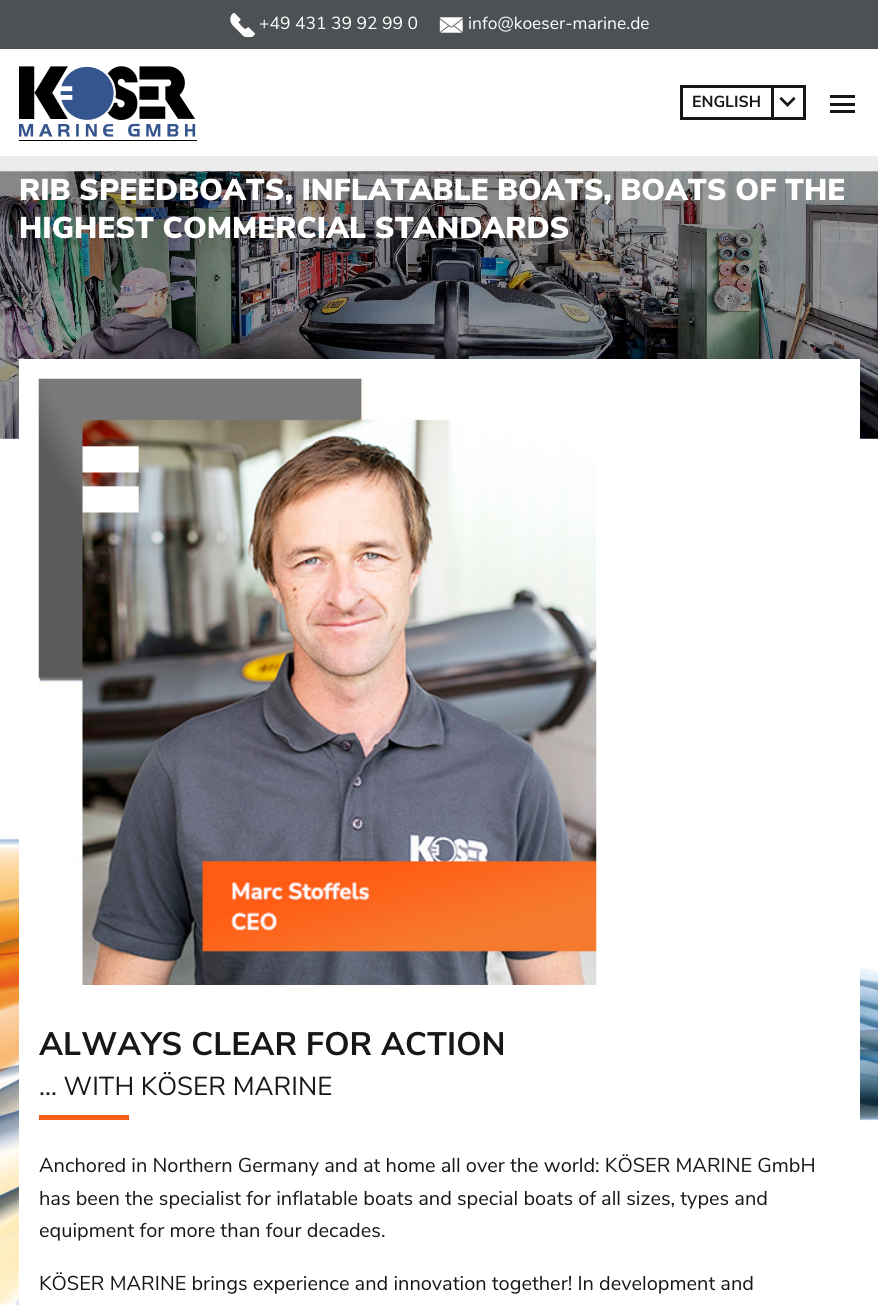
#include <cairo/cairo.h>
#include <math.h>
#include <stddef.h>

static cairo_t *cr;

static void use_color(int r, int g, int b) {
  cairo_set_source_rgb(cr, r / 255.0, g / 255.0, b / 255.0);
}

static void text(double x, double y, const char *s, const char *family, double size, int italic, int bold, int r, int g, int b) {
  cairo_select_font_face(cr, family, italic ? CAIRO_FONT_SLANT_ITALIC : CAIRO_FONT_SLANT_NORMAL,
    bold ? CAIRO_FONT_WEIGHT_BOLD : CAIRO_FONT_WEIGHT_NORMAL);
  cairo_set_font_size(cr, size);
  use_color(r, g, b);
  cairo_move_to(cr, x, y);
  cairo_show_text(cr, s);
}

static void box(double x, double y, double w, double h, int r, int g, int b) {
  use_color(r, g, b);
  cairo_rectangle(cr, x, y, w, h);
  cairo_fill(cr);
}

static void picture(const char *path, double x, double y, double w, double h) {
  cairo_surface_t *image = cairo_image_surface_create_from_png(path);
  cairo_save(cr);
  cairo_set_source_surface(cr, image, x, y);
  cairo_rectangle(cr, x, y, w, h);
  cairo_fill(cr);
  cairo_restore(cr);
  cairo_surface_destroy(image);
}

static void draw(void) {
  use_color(255, 255, 255);
  cairo_paint(cr);
  picture("img_01.png", 0, 838, 878, 467);
  box(0, 0, 878, 49, 76, 81, 83);
  picture("img_02.png", 230, 13, 25, 25);
  picture("img_03.png", 439, 17, 24, 16);
  box(0, 156, 878, 15, 236, 236, 236);
  picture("img_04.png", 19, 66, 178, 75);
  cairo_rectangle(cr, 681.5, 86.5, 123, 32);
  use_color(24, 23, 22);
  cairo_set_line_width(cr, 3);
  cairo_stroke(cr);
  picture("img_05.png", 779, 97, 17, 10);
  box(771, 88, 3, 30, 24, 23, 22);
  box(830, 103, 25, 3, 24, 23, 22);
  box(830, 95, 25, 3, 24, 23, 22);
  box(830, 110, 25, 3, 24, 23, 22);
  picture("img_06.png", 0, 171, 878, 268);
  box(19, 359, 841, 945, 255, 255, 255);
  picture("img_07.png", 38, 378, 559, 607);
  box(39, 1115, 90, 5, 251, 93, 17);
  text(259, 29, "+49 431 39 92 99 0", "Nunito Sans", 17.5, 0, 0, 255, 255, 255);
  text(468, 29, "info@koeser-marine.de", "Nunito Sans", 17.5, 0, 0, 255, 255, 255);
  text(692, 107, "ENGLISH", "Nunito Sans", 16, 0, 1, 24, 23, 22);
  text(19, 200, "RIB SPEEDBOATS, INFLATABLE BOATS, BOATS OF THE", "Nunito Sans Black", 30, 0, 0, 255, 255, 255);
  text(19, 238, "HIGHEST COMMERCIAL STANDARDS", "Nunito Sans Black", 30, 0, 0, 255, 255, 255);
  text(39, 1055, "ALWAYS CLEAR FOR ACTION", "Nunito Sans", 32.5, 0, 1, 24, 23, 22);
  text(39, 1095, "... WITH KÖSER MARINE", "Nunito Sans", 26, 0, 0, 24, 23, 22);
  text(39, 1172, "Anchored in Northern Germany and at home all over the world: KÖSER MARINE GmbH", "Nunito Sans", 20, 0, 0, 24, 23, 22);
  text(39, 1205, "has been the specialist for inflatable boats and special boats of all sizes, types and", "Nunito Sans", 20, 0, 0, 24, 23, 22);
  text(39, 1237, "equipment for more than four decades.", "Nunito Sans", 20, 0, 0, 24, 23, 22);
  text(39, 1290, "KÖSER MARINE brings experience and innovation together! In development and", "Nunito Sans", 20, 0, 0, 24, 23, 22);
}

int main(void) {
  cairo_surface_t *surface = cairo_image_surface_create(CAIRO_FORMAT_RGB24, 878, 1305);
  cr = cairo_create(surface);
  cairo_font_options_t *options = cairo_font_options_create();
  cairo_font_options_set_hint_metrics(options, CAIRO_HINT_METRICS_OFF);
  cairo_font_options_set_hint_style(options, CAIRO_HINT_STYLE_NONE);
  cairo_set_font_options(cr, options);
  cairo_set_miter_limit(cr, 4);
  draw();
  cairo_surface_write_to_png(surface, "out.png");
  cairo_font_options_destroy(options);
  cairo_destroy(cr);
  cairo_surface_destroy(surface);
  return 0;
}
